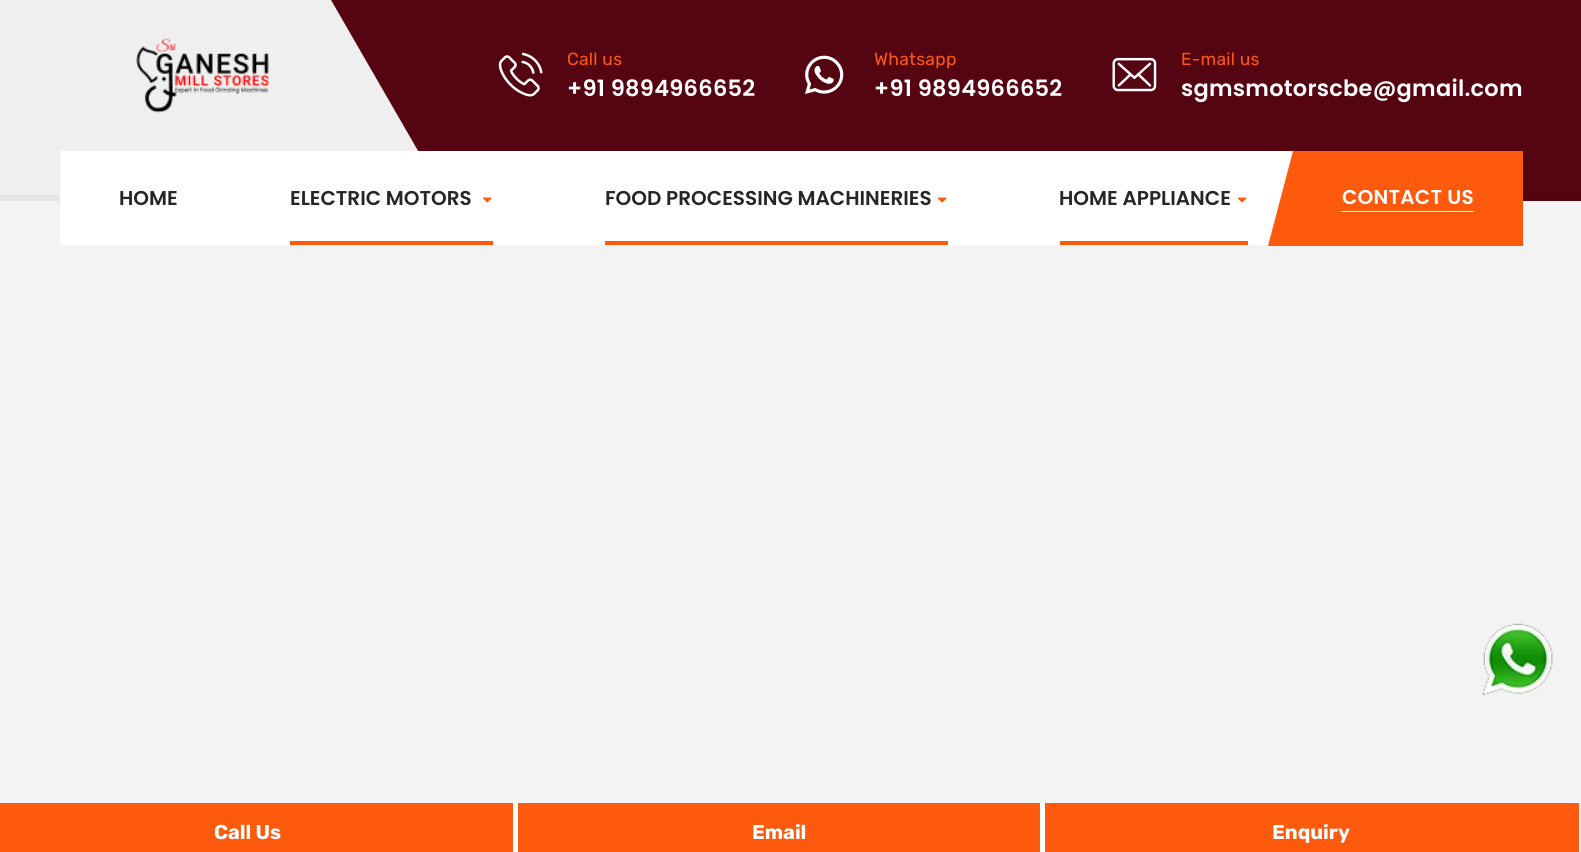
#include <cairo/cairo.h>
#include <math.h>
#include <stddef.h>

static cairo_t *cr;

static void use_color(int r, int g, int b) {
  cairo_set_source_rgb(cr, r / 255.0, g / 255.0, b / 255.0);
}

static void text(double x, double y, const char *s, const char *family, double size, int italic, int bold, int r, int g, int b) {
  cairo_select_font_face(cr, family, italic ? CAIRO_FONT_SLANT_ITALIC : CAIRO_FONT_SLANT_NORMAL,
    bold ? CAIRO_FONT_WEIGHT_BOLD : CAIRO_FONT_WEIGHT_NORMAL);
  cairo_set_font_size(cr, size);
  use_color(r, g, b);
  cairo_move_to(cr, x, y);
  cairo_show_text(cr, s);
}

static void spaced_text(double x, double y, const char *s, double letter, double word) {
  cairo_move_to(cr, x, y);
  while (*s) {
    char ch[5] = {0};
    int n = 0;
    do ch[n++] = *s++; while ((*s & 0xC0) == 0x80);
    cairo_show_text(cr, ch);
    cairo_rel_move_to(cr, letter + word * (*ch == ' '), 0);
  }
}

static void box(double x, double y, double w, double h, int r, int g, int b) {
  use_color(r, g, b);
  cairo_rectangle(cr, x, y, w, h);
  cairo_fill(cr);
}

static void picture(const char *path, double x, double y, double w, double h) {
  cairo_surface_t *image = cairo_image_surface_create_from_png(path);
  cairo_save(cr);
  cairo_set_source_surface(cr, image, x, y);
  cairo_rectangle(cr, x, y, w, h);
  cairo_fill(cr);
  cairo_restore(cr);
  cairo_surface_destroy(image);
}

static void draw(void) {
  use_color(255, 255, 255);
  cairo_paint(cr);
  box(331, 0, 1250, 201, 85, 4, 17);
  use_color(239, 239, 239);
  cairo_new_path(cr);
  cairo_move_to(cr, -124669, 0);
  cairo_line_to(cr, 331, 0);
  cairo_line_to(cr, 447, 201);
  cairo_line_to(cr, -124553, 201);
  cairo_close_path(cr);
  cairo_fill(cr);
  picture("img_01.png", 136, 38, 133, 75);
  picture("img_02.png", 498, 52, 45, 45);
  picture("img_03.png", 805, 55, 39, 39);
  picture("img_04.png", 1112, 57, 45, 35);
  cairo_set_source_rgba(cr, 0, 0, 0, 0.05);
  cairo_rectangle(cr, 0, 195, 1581, 657);
  cairo_fill(cr);
  use_color(255, 255, 255);
  cairo_new_path(cr);
  cairo_move_to(cr, 1237, 151);
  cairo_line_to(cr, 1312, 151);
  cairo_line_to(cr, 1287, 245);
  cairo_line_to(cr, 1212, 245);
  cairo_close_path(cr);
  cairo_fill(cr);
  box(60, 151, 1177, 94, 255, 255, 255);
  picture("img_05.png", 482, 197, 10, 6);
  box(290, 241, 203, 4, 254, 90, 14);
  picture("img_05.png", 937, 197, 10, 6);
  box(605, 241, 343, 4, 254, 90, 14);
  picture("img_05.png", 1237, 197, 10, 6);
  box(1060, 241, 188, 4, 254, 90, 14);
  cairo_new_path(cr);
  cairo_move_to(cr, 1293, 151);
  cairo_line_to(cr, 1324, 151);
  cairo_line_to(cr, 1299, 246);
  cairo_line_to(cr, 1268, 246);
  cairo_close_path(cr);
  cairo_fill(cr);
  box(1299, 151, 224, 95, 254, 90, 14);
  box(1341, 211, 133, 1, 255, 255, 255);
  picture("img_06.png", 1482, 623, 71, 73);
  box(0, 803, 1579, 49, 254, 90, 14);
  box(1040, 803, 5, 49, 255, 255, 255);
  box(513, 803, 5, 49, 255, 255, 255);
  cairo_select_font_face(cr, "Rubik", CAIRO_FONT_SLANT_NORMAL, CAIRO_FONT_WEIGHT_NORMAL);
  cairo_set_font_size(cr, 17.5);
  use_color(254, 90, 14);
  spaced_text(567, 65, "Call us", 0.25, 0);
  cairo_select_font_face(cr, "Poppins SemiBold", CAIRO_FONT_SLANT_NORMAL, CAIRO_FONT_WEIGHT_NORMAL);
  cairo_set_font_size(cr, 22.5);
  use_color(255, 255, 255);
  spaced_text(567, 96, "+91 9894966652", 0.25, 0);
  cairo_select_font_face(cr, "Rubik", CAIRO_FONT_SLANT_NORMAL, CAIRO_FONT_WEIGHT_NORMAL);
  cairo_set_font_size(cr, 17.5);
  use_color(254, 90, 14);
  spaced_text(874, 65, "Whatsapp", 0.25, 0);
  cairo_select_font_face(cr, "Poppins SemiBold", CAIRO_FONT_SLANT_NORMAL, CAIRO_FONT_WEIGHT_NORMAL);
  cairo_set_font_size(cr, 22.5);
  use_color(255, 255, 255);
  spaced_text(874, 96, "+91 9894966652", 0.25, 0);
  cairo_select_font_face(cr, "Rubik", CAIRO_FONT_SLANT_NORMAL, CAIRO_FONT_WEIGHT_NORMAL);
  cairo_set_font_size(cr, 17.5);
  use_color(254, 90, 14);
  spaced_text(1181, 65, "E-mail us", 0.25, 0);
  cairo_select_font_face(cr, "Poppins SemiBold", CAIRO_FONT_SLANT_NORMAL, CAIRO_FONT_WEIGHT_NORMAL);
  cairo_set_font_size(cr, 22.5);
  use_color(255, 255, 255);
  spaced_text(1181, 96, "sgmsmotorscbe@gmail.com", 0.25, 0);
  text(119, 205, "HOME", "Poppins SemiBold", 20, 0, 0, 38, 38, 38);
  text(290, 205, "ELECTRIC MOTORS", "Poppins SemiBold", 20, 0, 0, 38, 38, 38);
  text(605, 205, "FOOD PROCESSING MACHINERIES", "Poppins SemiBold", 20, 0, 0, 38, 38, 38);
  text(1059, 205, "HOME APPLIANCE", "Poppins SemiBold", 20, 0, 0, 38, 38, 38);
  use_color(255, 255, 255);
  spaced_text(1342, 204, "CONTACT US", 0.25, 0);
  text(214, 839, "Call Us", "Rubik", 20, 0, 1, 255, 255, 255);
  text(752, 839, "Email", "Rubik", 20, 0, 1, 255, 255, 255);
  text(1272, 839, "Enquiry", "Rubik", 20, 0, 1, 255, 255, 255);
}

int main(void) {
  cairo_surface_t *surface = cairo_image_surface_create(CAIRO_FORMAT_RGB24, 1581, 852);
  cr = cairo_create(surface);
  cairo_font_options_t *options = cairo_font_options_create();
  cairo_font_options_set_hint_metrics(options, CAIRO_HINT_METRICS_OFF);
  cairo_font_options_set_hint_style(options, CAIRO_HINT_STYLE_NONE);
  cairo_set_font_options(cr, options);
  cairo_set_miter_limit(cr, 4);
  draw();
  cairo_surface_write_to_png(surface, "out.png");
  cairo_font_options_destroy(options);
  cairo_destroy(cr);
  cairo_surface_destroy(surface);
  return 0;
}
